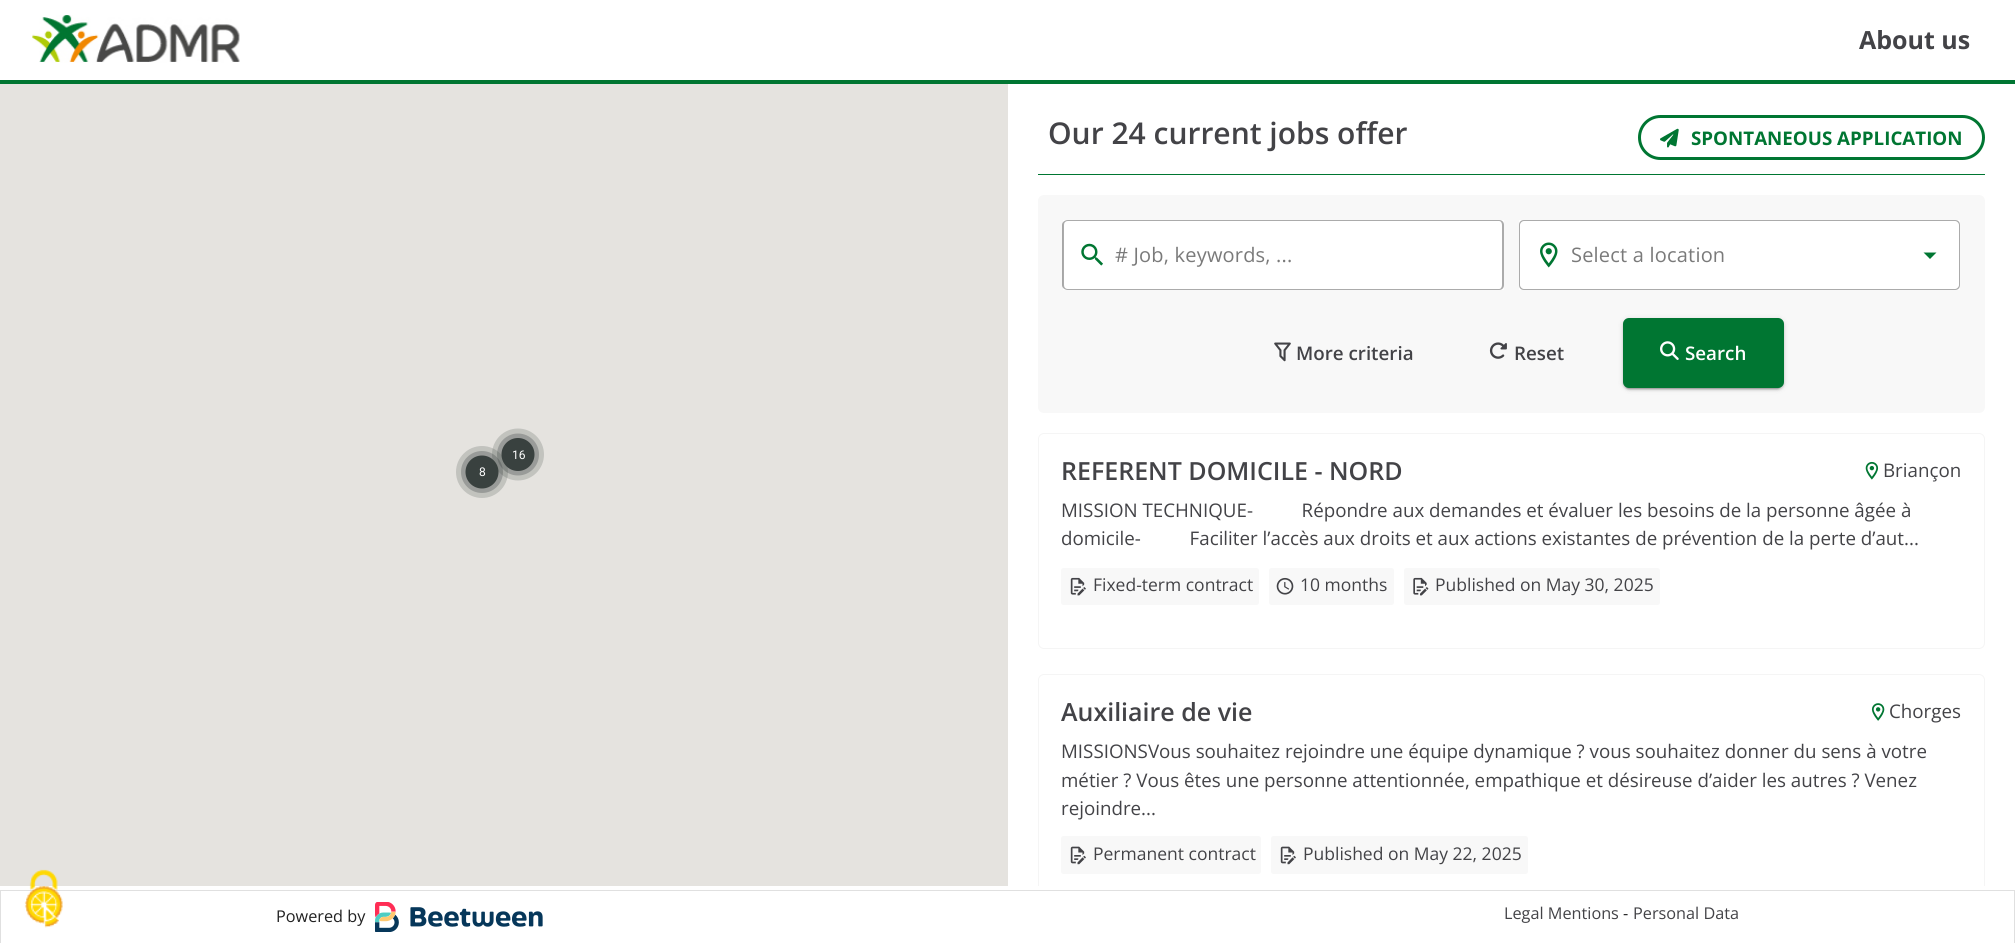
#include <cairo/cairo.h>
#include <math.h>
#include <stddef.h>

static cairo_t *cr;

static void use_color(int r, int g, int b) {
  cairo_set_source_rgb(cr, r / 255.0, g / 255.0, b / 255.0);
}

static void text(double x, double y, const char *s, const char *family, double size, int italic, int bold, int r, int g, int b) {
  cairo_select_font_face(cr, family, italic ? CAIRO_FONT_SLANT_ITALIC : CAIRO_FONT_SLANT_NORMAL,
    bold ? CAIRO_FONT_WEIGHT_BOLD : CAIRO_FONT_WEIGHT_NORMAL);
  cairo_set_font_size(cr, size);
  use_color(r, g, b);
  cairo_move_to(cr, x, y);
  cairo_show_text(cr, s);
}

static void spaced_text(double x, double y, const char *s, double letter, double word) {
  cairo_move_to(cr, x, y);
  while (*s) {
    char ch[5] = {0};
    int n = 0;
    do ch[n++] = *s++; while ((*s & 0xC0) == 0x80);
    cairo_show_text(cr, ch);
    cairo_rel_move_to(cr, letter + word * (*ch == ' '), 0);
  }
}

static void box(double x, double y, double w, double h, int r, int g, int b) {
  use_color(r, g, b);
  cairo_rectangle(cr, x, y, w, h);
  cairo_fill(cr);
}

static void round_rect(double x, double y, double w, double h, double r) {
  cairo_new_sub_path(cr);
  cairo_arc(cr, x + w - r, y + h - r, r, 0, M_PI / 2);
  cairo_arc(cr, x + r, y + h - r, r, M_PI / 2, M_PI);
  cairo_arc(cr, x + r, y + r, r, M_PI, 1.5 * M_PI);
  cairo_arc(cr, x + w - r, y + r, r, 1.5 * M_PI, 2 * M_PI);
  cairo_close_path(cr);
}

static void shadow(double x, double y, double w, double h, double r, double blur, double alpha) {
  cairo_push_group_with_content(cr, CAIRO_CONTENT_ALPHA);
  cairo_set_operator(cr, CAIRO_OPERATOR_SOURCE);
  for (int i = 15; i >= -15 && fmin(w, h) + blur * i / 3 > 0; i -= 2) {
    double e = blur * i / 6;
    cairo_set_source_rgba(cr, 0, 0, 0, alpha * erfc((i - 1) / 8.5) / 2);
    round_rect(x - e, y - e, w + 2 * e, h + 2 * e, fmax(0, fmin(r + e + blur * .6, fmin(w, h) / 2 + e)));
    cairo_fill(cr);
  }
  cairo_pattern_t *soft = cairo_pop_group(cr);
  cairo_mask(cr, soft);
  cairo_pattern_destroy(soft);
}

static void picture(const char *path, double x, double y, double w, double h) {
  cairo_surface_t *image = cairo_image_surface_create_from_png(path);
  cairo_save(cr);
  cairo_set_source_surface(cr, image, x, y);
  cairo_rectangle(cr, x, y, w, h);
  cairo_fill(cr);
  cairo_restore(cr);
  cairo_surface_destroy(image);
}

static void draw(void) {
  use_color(255, 255, 255);
  cairo_paint(cr);
  box(0, 84, 1008, 802, 229, 227, 223);
  cairo_save(cr);
  cairo_rectangle(cr, 1008, 80, 1007, 806);
  cairo_clip(cr);
  round_rect(1038.5, 674.5, 946, 243, 5.5);
  use_color(245, 245, 245);
  cairo_set_line_width(cr, 1);
  cairo_stroke(cr);
  cairo_restore(cr);
  cairo_rectangle(cr, 0.5, 890.5, 2014, 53);
  use_color(224, 224, 224);
  cairo_set_line_width(cr, 1);
  cairo_stroke(cr);
  picture("img_01.png", 24, 869, 39, 59);
  box(0, 80, 2015, 4, 0, 118, 50);
  picture("img_02.png", 32, 15, 208, 48);
  use_color(58, 65, 64);
  cairo_arc(cr, 482, 472, 16.5, 0, 2 * M_PI);
  cairo_fill(cr);
  cairo_set_source_rgba(cr, 0.227, 0.255, 0.251, 0.3);
  cairo_arc(cr, 482, 472, 21, 0, 2 * M_PI);
  cairo_fill(cr);
  cairo_set_source_rgba(cr, 0.227, 0.255, 0.251, 0.2);
  cairo_arc(cr, 482, 472, 26, 0, 2 * M_PI);
  cairo_fill(cr);
  use_color(58, 65, 64);
  cairo_arc(cr, 518, 454.5, 16.5, 0, 2 * M_PI);
  cairo_fill(cr);
  cairo_set_source_rgba(cr, 0.227, 0.255, 0.251, 0.3);
  cairo_arc(cr, 518, 454.5, 21, 0, 2 * M_PI);
  cairo_fill(cr);
  cairo_set_source_rgba(cr, 0.227, 0.255, 0.251, 0.2);
  cairo_arc(cr, 518, 454.5, 26, 0, 2 * M_PI);
  cairo_fill(cr);
  box(1038, 174, 947, 1, 0, 118, 50);
  round_rect(1639.5, 116.5, 344, 42, 21);
  cairo_set_line_width(cr, 3);
  cairo_stroke(cr);
  picture("img_03.png", 1660, 128, 19, 20);
  use_color(248, 248, 248);
  round_rect(1038, 195, 947, 218, 6);
  cairo_fill(cr);
  box(1063, 220, 441, 70, 255, 255, 255);
  cairo_set_source_rgba(cr, 0, 0, 0, 0.33);
  cairo_set_fill_rule(cr, CAIRO_FILL_RULE_EVEN_ODD);
  cairo_new_path(cr);
  cairo_move_to(cr, 1068, 220);
  cairo_line_to(cr, 1078, 220);
  cairo_line_to(cr, 1078, 290);
  cairo_line_to(cr, 1068, 290);
  cairo_curve_to(cr, 1065, 290, 1062, 288, 1062, 285);
  cairo_line_to(cr, 1062, 225);
  cairo_curve_to(cr, 1062, 222, 1065, 220, 1068, 220);
  cairo_close_path(cr);
  cairo_move_to(cr, 1068, 221);
  cairo_line_to(cr, 1078, 221);
  cairo_line_to(cr, 1078, 289);
  cairo_line_to(cr, 1068, 289);
  cairo_curve_to(cr, 1065, 289, 1064, 287, 1064, 285);
  cairo_line_to(cr, 1064, 225);
  cairo_curve_to(cr, 1064, 223, 1065, 221, 1068, 221);
  cairo_close_path(cr);
  cairo_fill(cr);
  box(1078, 220, 142, 1, 171, 171, 171);
  box(1078, 289, 142, 1, 171, 171, 171);
  cairo_new_path(cr);
  cairo_move_to(cr, 1220, 220);
  cairo_line_to(cr, 1499, 220);
  cairo_curve_to(cr, 1502, 220, 1504, 222, 1504, 225);
  cairo_line_to(cr, 1504, 285);
  cairo_curve_to(cr, 1504, 288, 1502, 290, 1499, 290);
  cairo_line_to(cr, 1220, 290);
  cairo_close_path(cr);
  cairo_move_to(cr, 1220, 221);
  cairo_line_to(cr, 1499, 221);
  cairo_curve_to(cr, 1501, 221, 1502, 223, 1502, 225);
  cairo_line_to(cr, 1502, 285);
  cairo_curve_to(cr, 1502, 287, 1501, 289, 1499, 289);
  cairo_line_to(cr, 1220, 289);
  cairo_close_path(cr);
  cairo_fill(cr);
  picture("img_04.png", 1081, 243, 22, 23);
  box(1519, 220, 441, 70, 255, 255, 255);
  use_color(171, 171, 171);
  cairo_new_path(cr);
  cairo_move_to(cr, 1524, 220);
  cairo_line_to(cr, 1534, 220);
  cairo_line_to(cr, 1534, 290);
  cairo_line_to(cr, 1524, 290);
  cairo_curve_to(cr, 1521, 290, 1519, 288, 1519, 285);
  cairo_line_to(cr, 1519, 225);
  cairo_curve_to(cr, 1519, 222, 1521, 220, 1524, 220);
  cairo_close_path(cr);
  cairo_move_to(cr, 1524, 221);
  cairo_line_to(cr, 1534, 221);
  cairo_line_to(cr, 1534, 289);
  cairo_line_to(cr, 1524, 289);
  cairo_curve_to(cr, 1522, 289, 1520, 287, 1520, 285);
  cairo_line_to(cr, 1520, 225);
  cairo_curve_to(cr, 1520, 223, 1522, 221, 1524, 221);
  cairo_close_path(cr);
  cairo_fill(cr);
  box(1534, 220, 125, 1, 171, 171, 171);
  box(1534, 289, 125, 1, 171, 171, 171);
  use_color(0, 118, 50);
  cairo_set_fill_rule(cr, CAIRO_FILL_RULE_WINDING);
  cairo_new_path(cr);
  cairo_move_to(cr, 1923.5, 252.5);
  cairo_line_to(cr, 1930, 259);
  cairo_line_to(cr, 1936.5, 252.5);
  cairo_close_path(cr);
  cairo_fill(cr);
  use_color(171, 171, 171);
  cairo_set_fill_rule(cr, CAIRO_FILL_RULE_EVEN_ODD);
  cairo_new_path(cr);
  cairo_move_to(cr, 1659, 220);
  cairo_line_to(cr, 1955, 220);
  cairo_curve_to(cr, 1958, 220, 1960, 222, 1960, 225);
  cairo_line_to(cr, 1960, 285);
  cairo_curve_to(cr, 1960, 288, 1958, 290, 1955, 290);
  cairo_line_to(cr, 1659, 290);
  cairo_close_path(cr);
  cairo_move_to(cr, 1659, 221);
  cairo_line_to(cr, 1955, 221);
  cairo_curve_to(cr, 1957, 221, 1959, 223, 1959, 225);
  cairo_line_to(cr, 1959, 285);
  cairo_curve_to(cr, 1959, 287, 1957, 289, 1955, 289);
  cairo_line_to(cr, 1659, 289);
  cairo_close_path(cr);
  cairo_fill(cr);
  picture("img_05.png", 1540, 242, 18, 26);
  picture("img_06.png", 1274, 342, 17, 20);
  picture("img_07.png", 1489, 342, 18, 17);
  use_color(0, 0, 0);
  shadow(1623, 319, 161, 70, 6, 3, 0.12);
  shadow(1623, 320, 161, 70, 6, 1, 0.14);
  shadow(1625, 324, 156, 65, 4, 0.5, 0.2);
  use_color(0, 118, 50);
  round_rect(1623, 318, 161, 70, 6);
  cairo_fill(cr);
  picture("img_08.png", 1660, 341, 19, 19);
  round_rect(1038.5, 433.5, 946, 215, 5.5);
  use_color(245, 245, 245);
  cairo_set_line_width(cr, 1);
  cairo_stroke(cr);
  picture("img_09.png", 1865, 461, 14, 19);
  use_color(248, 248, 248);
  round_rect(1061, 568, 198, 37, 2.5);
  cairo_fill(cr);
  picture("img_10.png", 1070, 577, 16, 19);
  round_rect(1269, 568, 125, 37, 2.5);
  cairo_fill(cr);
  picture("img_11.png", 1276, 577, 18, 18);
  round_rect(1404, 568, 256, 37, 2.5);
  cairo_fill(cr);
  picture("img_12.png", 1413, 577, 16, 19);
  picture("img_13.png", 1871, 703, 14, 18);
  round_rect(1061, 836, 200, 38, 2.5);
  cairo_fill(cr);
  picture("img_14.png", 1070, 846, 16, 19);
  round_rect(1271, 836, 257, 38, 2.5);
  cairo_fill(cr);
  picture("img_14.png", 1280, 846, 16, 19);
  picture("img_15.png", 375, 902, 168, 30);
  text(1859, 49, "About us", "Open Sans", 25, 0, 1, 67, 67, 71);
  text(512, 459, "16", "Roboto", 12, 0, 0, 255, 255, 255);
  text(479, 476, "8", "Roboto", 12, 0, 0, 255, 255, 255);
  text(1048, 144, "Our 24 current jobs offer", "Open Sans SemiBold", 30, 0, 0, 67, 67, 71);
  text(1691, 145, "SPONTANEOUS APPLICATION", "Open Sans", 18.75, 0, 1, 0, 118, 50);
  cairo_select_font_face(cr, "Open Sans", CAIRO_FONT_SLANT_NORMAL, CAIRO_FONT_WEIGHT_NORMAL);
  cairo_set_font_size(cr, 20);
  use_color(122, 122, 122);
  spaced_text(1115, 262, "# Job, keywords, ...", 0.2, 0);
  spaced_text(1571, 262, "Select a location", 0.2, 0);
  text(1296, 360, "More criteria", "Open Sans SemiBold", 18.75, 0, 0, 67, 67, 71);
  text(1514, 360, "Reset", "Open Sans SemiBold", 18.75, 0, 0, 67, 67, 71);
  text(1685, 360, "Search", "Open Sans SemiBold", 18.75, 0, 0, 255, 255, 255);
  text(1061, 480, "REFERENT DOMICILE - NORD", "Open Sans SemiBold", 25, 0, 0, 67, 67, 71);
  text(1883, 477, "Briançon", "Open Sans", 18.75, 0, 0, 67, 67, 71);
  text(1061, 517, "MISSION TECHNIQUE-          Répondre aux demandes et évaluer les besoins de la personne âgée à", "Open Sans", 18.75, 0, 0, 67, 67, 71);
  text(1061, 545, "domicile-          Faciliter l’accès aux droits et aux actions existantes de prévention de la perte d’aut...", "Open Sans", 18.75, 0, 0, 67, 67, 71);
  text(1093, 591, "Fixed-term contract", "Open Sans", 17.5, 0, 0, 67, 67, 71);
  text(1300, 591, "10 months", "Open Sans", 17.5, 0, 0, 67, 67, 71);
  text(1435, 591, "Published on May 30, 2025", "Open Sans", 17.5, 0, 0, 67, 67, 71);
  text(1061, 721, "Auxiliaire de vie", "Open Sans SemiBold", 25, 0, 0, 67, 67, 71);
  text(1889, 718, "Chorges", "Open Sans", 18.75, 0, 0, 67, 67, 71);
  text(1061, 758, "MISSIONSVous souhaitez rejoindre une équipe dynamique ? vous souhaitez donner du sens à votre", "Open Sans", 18.75, 0, 0, 67, 67, 71);
  text(1061, 787, "métier ? Vous êtes une personne attentionnée, empathique et désireuse d’aider les autres ? Venez", "Open Sans", 18.75, 0, 0, 67, 67, 71);
  text(1061, 815, "rejoindre...", "Open Sans", 18.75, 0, 0, 67, 67, 71);
  text(1093, 860, "Permanent contract", "Open Sans", 17.5, 0, 0, 67, 67, 71);
  text(1303, 860, "Published on May 22, 2025", "Open Sans", 17.5, 0, 0, 67, 67, 71);
  text(276, 922, "Powered by", "Open Sans", 16.25, 0, 0, 33, 33, 33);
  text(1504, 919, "Legal Mentions", "Open Sans", 16.25, 0, 0, 67, 67, 71);
  text(1623, 919, "-", "Open Sans", 16.25, 0, 0, 33, 33, 33);
  text(1633, 919, "Personal Data", "Open Sans", 16.25, 0, 0, 67, 67, 71);
}

int main(void) {
  cairo_surface_t *surface = cairo_image_surface_create(CAIRO_FORMAT_RGB24, 2015, 943);
  cr = cairo_create(surface);
  cairo_font_options_t *options = cairo_font_options_create();
  cairo_font_options_set_hint_metrics(options, CAIRO_HINT_METRICS_OFF);
  cairo_font_options_set_hint_style(options, CAIRO_HINT_STYLE_NONE);
  cairo_set_font_options(cr, options);
  cairo_set_miter_limit(cr, 4);
  draw();
  cairo_surface_write_to_png(surface, "out.png");
  cairo_font_options_destroy(options);
  cairo_destroy(cr);
  cairo_surface_destroy(surface);
  return 0;
}
